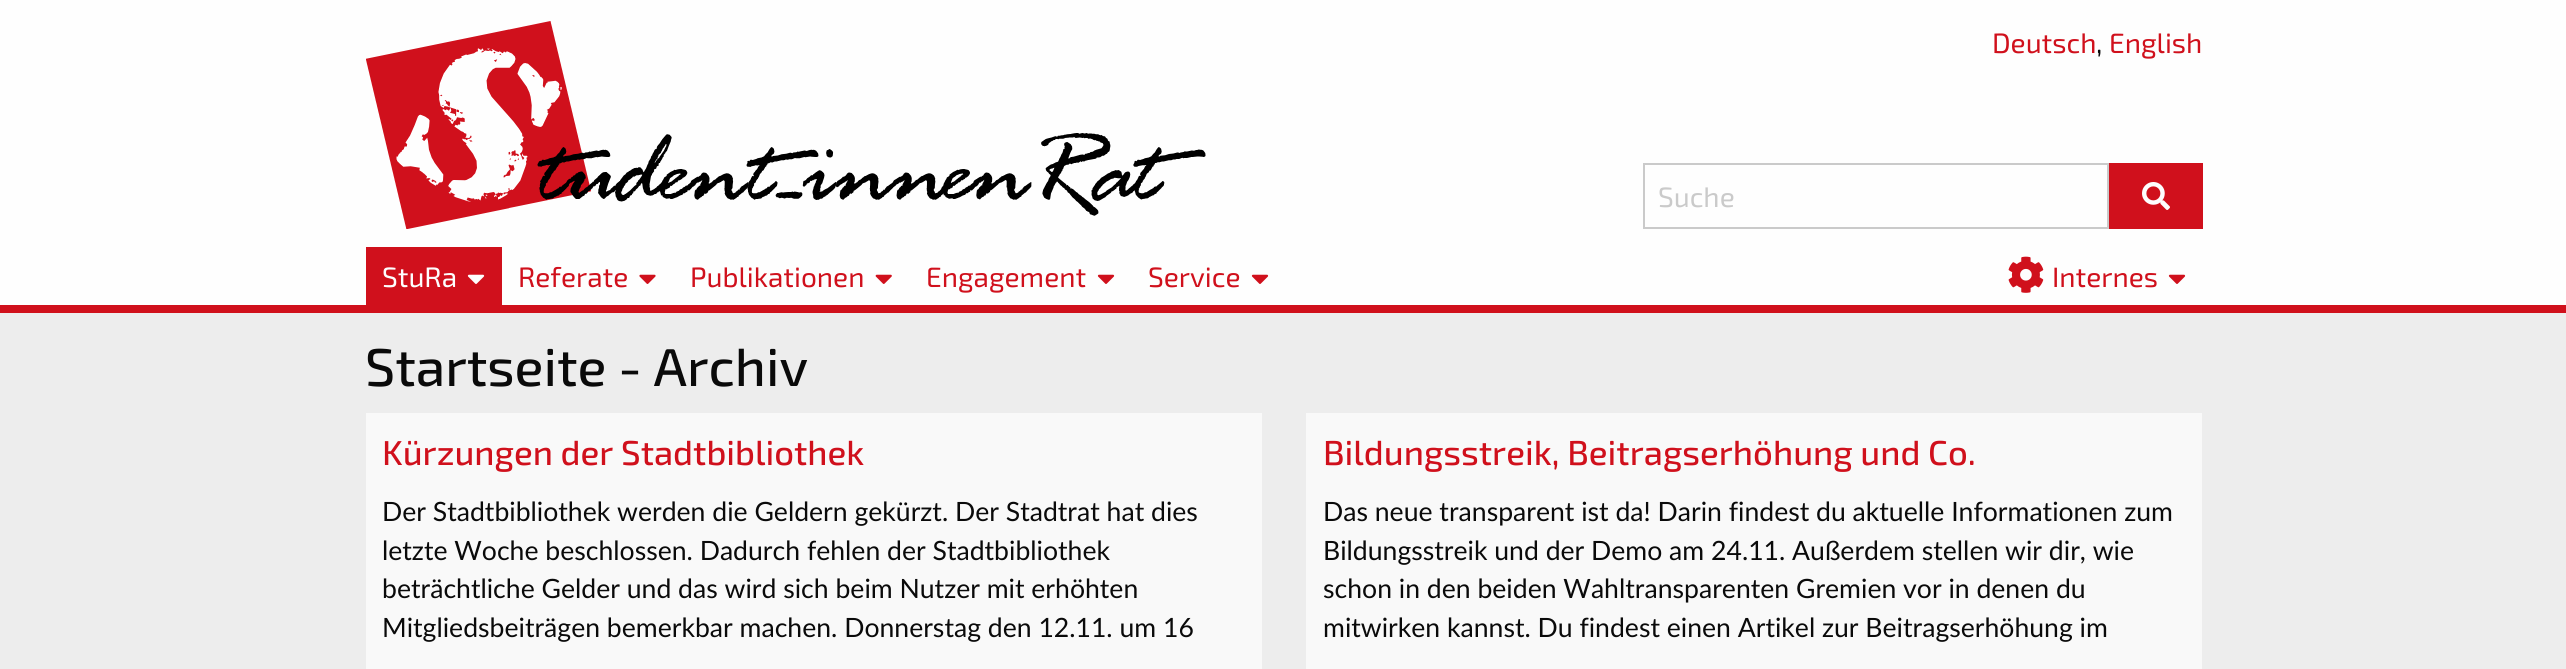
#include <cairo/cairo.h>
#include <math.h>
#include <stddef.h>

static cairo_t *cr;

static void use_color(int r, int g, int b) {
  cairo_set_source_rgb(cr, r / 255.0, g / 255.0, b / 255.0);
}

static void text(double x, double y, const char *s, const char *family, double size, int italic, int bold, int r, int g, int b) {
  cairo_select_font_face(cr, family, italic ? CAIRO_FONT_SLANT_ITALIC : CAIRO_FONT_SLANT_NORMAL,
    bold ? CAIRO_FONT_WEIGHT_BOLD : CAIRO_FONT_WEIGHT_NORMAL);
  cairo_set_font_size(cr, size);
  use_color(r, g, b);
  cairo_move_to(cr, x, y);
  cairo_show_text(cr, s);
}

static void box(double x, double y, double w, double h, int r, int g, int b) {
  use_color(r, g, b);
  cairo_rectangle(cr, x, y, w, h);
  cairo_fill(cr);
}

static void picture(const char *path, double x, double y, double w, double h) {
  cairo_surface_t *image = cairo_image_surface_create_from_png(path);
  cairo_save(cr);
  cairo_set_source_surface(cr, image, x, y);
  cairo_rectangle(cr, x, y, w, h);
  cairo_fill(cr);
  cairo_restore(cr);
  cairo_surface_destroy(image);
}

static void draw(void) {
  use_color(237, 237, 237);
  cairo_paint(cr);
  box(0, 0, 2566, 305, 254, 254, 254);
  picture("img_01.png", 366, 21, 840, 208);
  cairo_rectangle(cr, 1644, 164, 464, 64);
  use_color(202, 202, 202);
  cairo_stroke(cr);
  box(2109, 163, 94, 66, 208, 16, 28);
  picture("img_02.png", 2142, 182, 28, 28);
  box(366, 247, 136, 58, 208, 16, 28);
  picture("img_03.png", 467, 274, 18, 10);
  picture("img_04.png", 639, 274, 17, 10);
  picture("img_05.png", 875, 274, 17, 10);
  picture("img_06.png", 1097, 274, 18, 10);
  picture("img_06.png", 1251, 274, 18, 10);
  picture("img_07.png", 2008, 256, 36, 37);
  picture("img_06.png", 2168, 274, 18, 10);
  box(0, 305, 2566, 8, 208, 16, 28);
  box(366, 413, 896, 256, 249, 249, 249);
  box(1306, 413, 896, 256, 249, 249, 249);
  text(1992, 53, "Deutsch", "Exo 2", 28, 0, 0, 208, 16, 28);
  text(2096, 53, ",", "Exo 2", 28, 0, 0, 10, 10, 10);
  text(2109, 53, "English", "Exo 2", 28, 0, 0, 208, 16, 28);
  text(1658, 207, "Suche", "Exo 2", 28, 0, 0, 202, 202, 202);
  text(382, 287, "StuRa", "Exo 2", 28, 0, 0, 254, 254, 254);
  text(518, 287, "Referate", "Exo 2", 28, 0, 0, 208, 16, 28);
  text(690, 287, "Publikationen", "Exo 2", 28, 0, 0, 208, 16, 28);
  text(926, 287, "Engagement", "Exo 2", 28, 0, 0, 208, 16, 28);
  text(1148, 287, "Service", "Exo 2", 28, 0, 0, 208, 16, 28);
  text(2052, 287, "Internes", "Exo 2", 28, 0, 0, 208, 16, 28);
  text(365, 386, "Startseite - Archiv", "Exo 2 Medium", 53.25, 0, 0, 10, 10, 10);
  text(382, 465, "Kürzungen der Stadtbibliothek", "Exo 2 Medium", 34.6, 0, 0, 208, 16, 28);
  text(382, 521, "Der Stadtbibliothek werden die Geldern gekürzt. Der Stadtrat hat dies", "Lato", 26.6, 0, 0, 10, 10, 10);
  text(382, 560, "letzte Woche beschlossen. Dadurch fehlen der Stadtbibliothek", "Lato", 26.6, 0, 0, 10, 10, 10);
  text(382, 598, "beträchtliche Gelder und das wird sich beim Nutzer mit erhöhten", "Lato", 26.6, 0, 0, 10, 10, 10);
  text(382, 637, "Mitgliedsbeiträgen bemerkbar machen. Donnerstag den 12.11. um 16", "Lato", 26.6, 0, 0, 10, 10, 10);
  text(1323, 465, "Bildungsstreik, Beitragserhöhung und Co.", "Exo 2 Medium", 34.6, 0, 0, 208, 16, 28);
  text(1323, 521, "Das neue transparent ist da! Darin findest du aktuelle Informationen zum", "Lato", 26.6, 0, 0, 10, 10, 10);
  text(1323, 560, "Bildungsstreik und der Demo am 24.11. Außerdem stellen wir dir, wie", "Lato", 26.6, 0, 0, 10, 10, 10);
  text(1323, 598, "schon in den beiden Wahltransparenten Gremien vor in denen du", "Lato", 26.6, 0, 0, 10, 10, 10);
  text(1323, 637, "mitwirken kannst. Du findest einen Artikel zur Beitragserhöhung im", "Lato", 26.6, 0, 0, 10, 10, 10);
}

int main(void) {
  cairo_surface_t *surface = cairo_image_surface_create(CAIRO_FORMAT_RGB24, 2566, 669);
  cr = cairo_create(surface);
  cairo_font_options_t *options = cairo_font_options_create();
  cairo_font_options_set_hint_metrics(options, CAIRO_HINT_METRICS_OFF);
  cairo_font_options_set_hint_style(options, CAIRO_HINT_STYLE_NONE);
  cairo_set_font_options(cr, options);
  cairo_set_miter_limit(cr, 4);
  draw();
  cairo_surface_write_to_png(surface, "out.png");
  cairo_font_options_destroy(options);
  cairo_destroy(cr);
  cairo_surface_destroy(surface);
  return 0;
}
